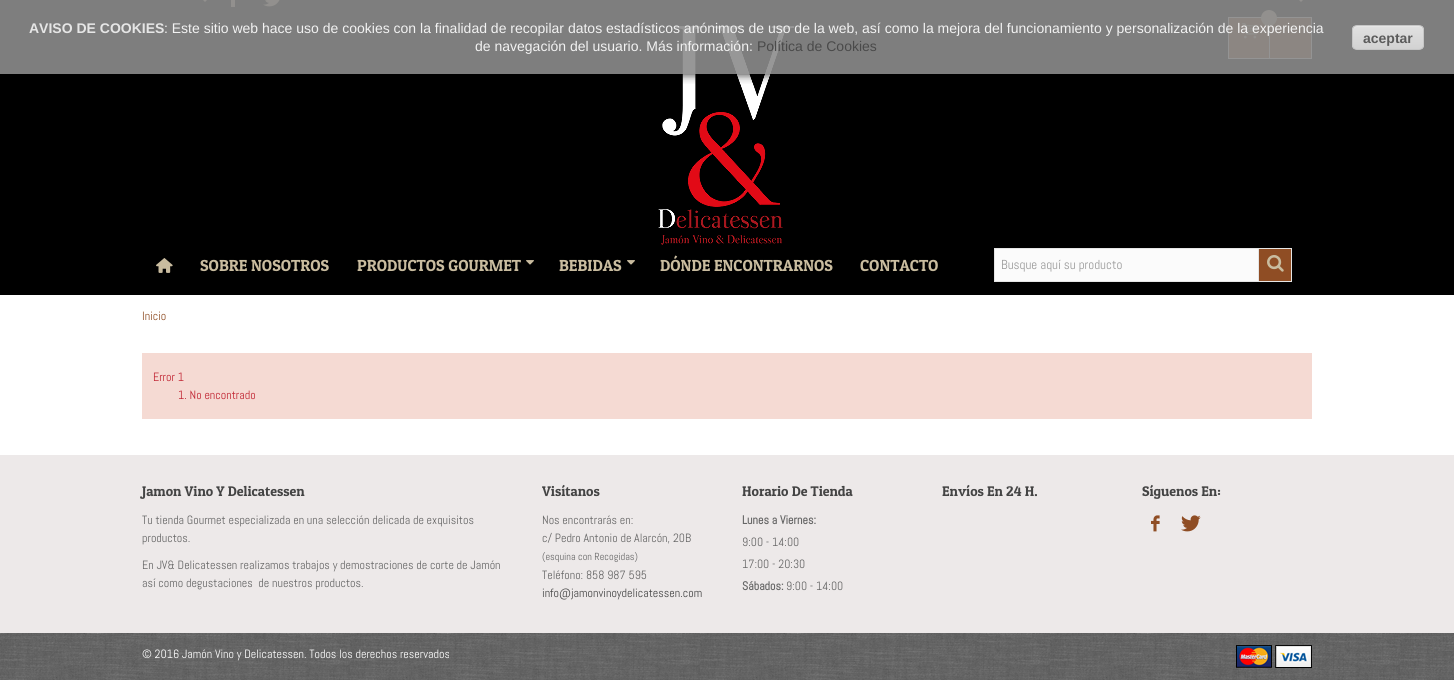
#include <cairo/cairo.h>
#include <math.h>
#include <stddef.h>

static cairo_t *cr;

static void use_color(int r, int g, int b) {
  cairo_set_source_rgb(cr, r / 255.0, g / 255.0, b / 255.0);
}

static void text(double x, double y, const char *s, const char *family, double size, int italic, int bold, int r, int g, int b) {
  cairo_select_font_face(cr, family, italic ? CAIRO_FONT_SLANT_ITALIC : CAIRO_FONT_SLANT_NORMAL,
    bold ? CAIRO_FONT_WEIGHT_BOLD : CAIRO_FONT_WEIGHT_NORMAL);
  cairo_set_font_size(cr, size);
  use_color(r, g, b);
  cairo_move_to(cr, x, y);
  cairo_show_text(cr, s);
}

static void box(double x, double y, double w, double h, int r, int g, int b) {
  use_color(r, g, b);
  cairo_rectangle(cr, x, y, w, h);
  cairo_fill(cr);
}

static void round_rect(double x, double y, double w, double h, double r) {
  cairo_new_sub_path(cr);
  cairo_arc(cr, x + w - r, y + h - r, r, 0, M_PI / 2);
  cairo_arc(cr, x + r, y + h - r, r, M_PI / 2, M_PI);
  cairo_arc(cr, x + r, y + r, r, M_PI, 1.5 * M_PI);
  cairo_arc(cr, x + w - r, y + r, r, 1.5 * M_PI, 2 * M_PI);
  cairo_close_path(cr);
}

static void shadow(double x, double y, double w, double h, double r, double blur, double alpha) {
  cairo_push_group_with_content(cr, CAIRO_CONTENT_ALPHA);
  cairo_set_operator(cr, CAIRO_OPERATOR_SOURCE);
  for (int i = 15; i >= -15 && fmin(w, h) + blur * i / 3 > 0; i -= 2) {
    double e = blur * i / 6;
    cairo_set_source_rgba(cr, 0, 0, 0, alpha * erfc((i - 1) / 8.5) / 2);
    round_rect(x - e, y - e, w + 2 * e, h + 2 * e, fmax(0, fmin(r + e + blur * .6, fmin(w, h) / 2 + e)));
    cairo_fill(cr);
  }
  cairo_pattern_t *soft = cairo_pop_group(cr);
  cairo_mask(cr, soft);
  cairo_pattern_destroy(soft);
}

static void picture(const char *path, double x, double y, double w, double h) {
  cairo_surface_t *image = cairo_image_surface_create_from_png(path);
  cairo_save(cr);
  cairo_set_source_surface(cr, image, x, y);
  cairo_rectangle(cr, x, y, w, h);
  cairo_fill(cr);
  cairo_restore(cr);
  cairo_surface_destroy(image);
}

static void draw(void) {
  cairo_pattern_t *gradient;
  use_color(255, 255, 255);
  cairo_paint(cr);
  box(0, 455, 1454, 178, 237, 233, 233);
  box(0, 0, 1454, 295, 0, 0, 0);
  use_color(201, 188, 159);
  cairo_new_path(cr);
  cairo_move_to(cr, 201, -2);
  cairo_line_to(cr, 209, -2);
  cairo_line_to(cr, 205, 2);
  cairo_close_path(cr);
  cairo_fill(cr);
  box(231, 0, 4, 7, 201, 188, 159);
  picture("img_05.png", 263, 0, 17, 7);
  cairo_new_path(cr);
  cairo_move_to(cr, 1297, -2);
  cairo_line_to(cr, 1305, -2);
  cairo_line_to(cr, 1301, 2);
  cairo_close_path(cr);
  cairo_fill(cr);
  picture("img_06.png", 658, 26, 136, 219);
  use_color(143, 77, 36);
  cairo_rectangle(cr, 1228.5, 17.5, 41, 41);
  cairo_fill_preserve(cr);
  use_color(229, 229, 229);
  cairo_set_line_width(cr, 1);
  cairo_stroke(cr);
  box(1270, 18, 41, 40, 143, 77, 36);
  box(1270, 17, 42, 1, 229, 229, 229);
  use_color(201, 188, 159);
  cairo_arc(cr, 1269, 18, 8, 0, 2 * M_PI);
  cairo_fill(cr);
  picture("img_07.png", 1242, 22, 16, 17);
  box(1311, 17, 1, 42, 229, 229, 229);
  box(1270, 58, 42, 1, 229, 229, 229);
  cairo_save(cr);
  cairo_rectangle(cr, 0, 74, 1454, 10);
  cairo_clip(cr);
  use_color(0, 0, 0);
  shadow(0, 0, 1454, 74, 0, 5, 0.9);
  cairo_restore(cr);
  cairo_set_source_rgba(cr, 0.549, 0.549, 0.549, 0.9);
  cairo_rectangle(cr, 0, 0, 1454, 74);
  cairo_fill(cr);
  cairo_save(cr);
  round_rect(1352, 25, 72, 25, 5);
  cairo_clip(cr);
  gradient = cairo_pattern_create_linear(1353, 26, 1353, 49);
  cairo_pattern_add_color_stop_rgba(gradient, 0.05, 0.878, 0.878, 0.878, 1);
  cairo_pattern_add_color_stop_rgba(gradient, 1, 0.824, 0.824, 0.824, 1);
  cairo_set_source(cr, gradient);
  cairo_pattern_destroy(gradient);
  cairo_rectangle(cr, 1352, 26, 72, 23);
  cairo_fill(cr);
  cairo_restore(cr);
  use_color(230, 230, 230);
  cairo_new_path(cr);
  cairo_move_to(cr, 1357, 27);
  cairo_line_to(cr, 1419, 27);
  cairo_curve_to(cr, 1421, 27, 1423, 29, 1423, 31);
  cairo_curve_to(cr, 1423, 24, 1414, 26, 1409, 26);
  cairo_line_to(cr, 1367, 26);
  cairo_curve_to(cr, 1362, 26, 1353, 24, 1353, 31);
  cairo_curve_to(cr, 1353, 29, 1355, 27, 1357, 27);
  cairo_close_path(cr);
  cairo_fill(cr);
  round_rect(1352.5, 25.5, 71, 24, 4.5);
  use_color(198, 198, 198);
  cairo_stroke(cr);
  picture("img_01.png", 1151, 515, 9, 17);
  picture("img_02.png", 1181, 515, 20, 17);
  picture("img_03.png", 0, 633, 1454, 47);
  picture("img_04.png", 1236, 645, 76, 23);
  picture("img_08.png", 156, 258, 17, 15);
  picture("img_09.png", 526, 260, 8, 5);
  picture("img_09.png", 627, 260, 8, 5);
  box(995, 249, 263, 32, 251, 251, 251);
  box(994, 248, 264, 1, 229, 229, 229);
  box(994, 281, 264, 1, 229, 229, 229);
  box(994, 248, 1, 34, 229, 229, 229);
  use_color(143, 77, 36);
  cairo_rectangle(cr, 1258.5, 248.5, 33, 33);
  cairo_fill_preserve(cr);
  use_color(229, 229, 229);
  cairo_stroke(cr);
  picture("img_10.png", 1267, 255, 17, 17);
  box(142, 353, 1170, 66, 245, 218, 211);
  text(29, 33, "AVISO DE COOKIES", "Liberation Sans", 14, 0, 1, 230, 230, 230);
  text(164, 33, ": Este sitio web hace uso de cookies con la finalidad de recopilar datos estadísticos anónimos de uso de la web, así como la mejora del funcionamiento y personalización de la experiencia", "Liberation Sans", 14, 0, 0, 242, 242, 242);
  text(475, 51, "de navegación del usuario. Más información:", "Liberation Sans", 14, 0, 0, 242, 242, 242);
  text(757, 51, "Política de Cookies", "Liberation Sans", 14, 0, 0, 74, 74, 74);
  text(1363, 43, "aceptar", "Liberation Sans", 14, 0, 1, 92, 92, 92);
  text(142, 496, "Jamon Vino Y Delicatessen", "Patua One", 14, 0, 0, 68, 68, 68);
  text(142, 524, "Tu tienda Gourmet especializada en una selección delicada de exquisitos", "Abel", 12, 0, 0, 102, 102, 102);
  text(142, 542, "productos.", "Abel", 12, 0, 0, 102, 102, 102);
  text(142, 569, "En JV& Delicatessen realizamos trabajos y demostraciones de corte de Jamón", "Abel", 12, 0, 0, 102, 102, 102);
  text(142, 587, "así como degustaciones  de nuestros productos.", "Abel", 12, 0, 0, 102, 102, 102);
  text(542, 496, "Visítanos", "Patua One", 14, 0, 0, 68, 68, 68);
  text(542, 524, "Nos encontrarás en:", "Abel", 12, 0, 0, 102, 102, 102);
  text(542, 542, "c/ Pedro Antonio de Alarcón, 20B", "Abel", 12, 0, 0, 102, 102, 102);
  text(542, 560, "(esquina con Recogidas)", "Abel", 10.25, 0, 0, 102, 102, 102);
  text(542, 579, "Teléfono: 858 987 595", "Abel", 12, 0, 0, 102, 102, 102);
  text(542, 597, "info@jamonvinoydelicatessen.com", "Abel", 12, 0, 0, 68, 68, 68);
  text(742, 496, "Horario De Tienda", "Patua One", 14, 0, 0, 68, 68, 68);
  text(742, 524, "Lunes a Viernes:", "Abel", 12, 0, 1, 102, 102, 102);
  text(742, 546, "9:00 - 14:00", "Abel", 12, 0, 0, 102, 102, 102);
  text(742, 568, "17:00 - 20:30", "Abel", 12, 0, 0, 102, 102, 102);
  text(742, 590, "Sábados:", "Abel", 12, 0, 1, 102, 102, 102);
  text(786, 590, "9:00 - 14:00", "Abel", 12, 0, 0, 102, 102, 102);
  text(942, 496, "Envíos En 24 H.", "Patua One", 14, 0, 0, 68, 68, 68);
  text(1142, 496, "Síguenos En:", "Patua One", 14, 0, 0, 68, 68, 68);
  text(142, 658, "© 2016 Jamón Vino y Delicatessen. Todos los derechos reservados", "Abel", 12, 0, 0, 255, 255, 255);
  text(200, 271, "SOBRE NOSOTROS", "Patua One", 16, 0, 0, 201, 188, 159);
  text(357, 271, "PRODUCTOS GOURMET", "Patua One", 16, 0, 0, 201, 188, 159);
  text(559, 271, "BEBIDAS", "Patua One", 16, 0, 0, 201, 188, 159);
  text(660, 271, "DÓNDE ENCONTRARNOS", "Patua One", 16, 0, 0, 201, 188, 159);
  text(860, 271, "CONTACTO", "Patua One", 16, 0, 0, 201, 188, 159);
  text(1001, 269, "Busque aquí su producto", "Abel", 13, 0, 0, 153, 153, 153);
  text(142, 320, "Inicio", "Abel", 12, 0, 0, 143, 77, 36);
  text(153, 381, "Error 1", "Abel", 12, 0, 0, 192, 34, 48);
  text(178, 399, "1. No encontrado", "Abel", 12, 0, 0, 192, 34, 48);
}

int main(void) {
  cairo_surface_t *surface = cairo_image_surface_create(CAIRO_FORMAT_RGB24, 1454, 680);
  cr = cairo_create(surface);
  cairo_font_options_t *options = cairo_font_options_create();
  cairo_font_options_set_hint_metrics(options, CAIRO_HINT_METRICS_OFF);
  cairo_font_options_set_hint_style(options, CAIRO_HINT_STYLE_NONE);
  cairo_set_font_options(cr, options);
  cairo_set_miter_limit(cr, 4);
  draw();
  cairo_surface_write_to_png(surface, "out.png");
  cairo_font_options_destroy(options);
  cairo_destroy(cr);
  cairo_surface_destroy(surface);
  return 0;
}
